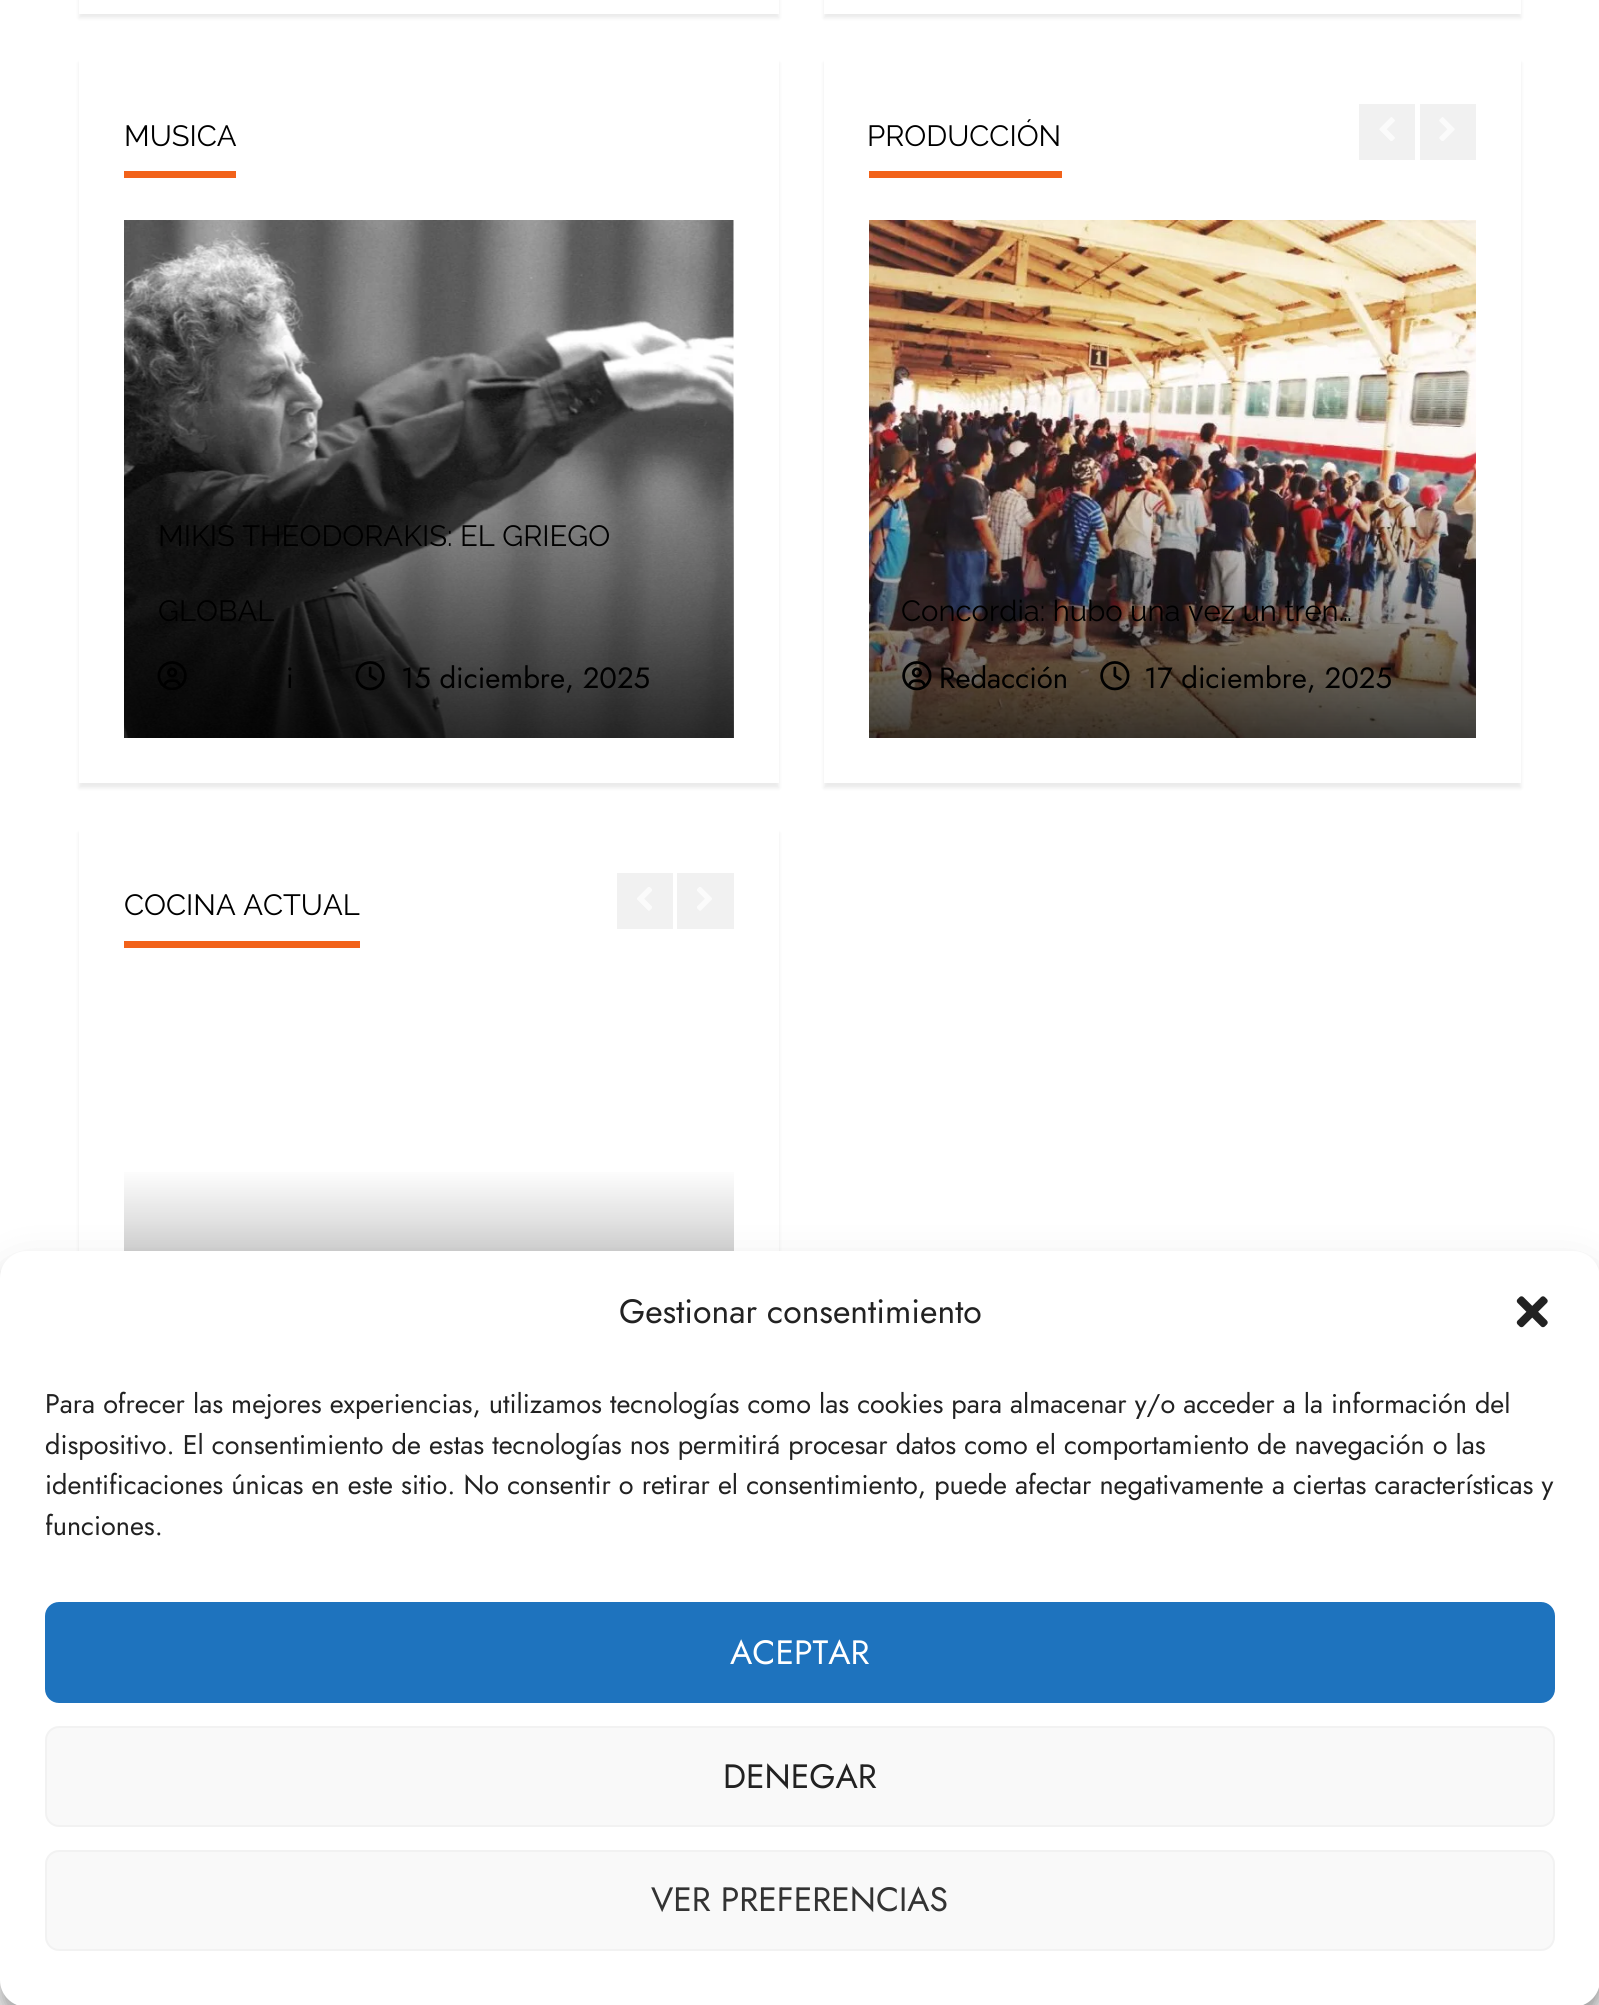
#include <cairo/cairo.h>
#include <math.h>
#include <stddef.h>

static cairo_t *cr;

static void use_color(int r, int g, int b) {
  cairo_set_source_rgb(cr, r / 255.0, g / 255.0, b / 255.0);
}

static void text(double x, double y, const char *s, const char *family, double size, int italic, int bold, int r, int g, int b) {
  cairo_select_font_face(cr, family, italic ? CAIRO_FONT_SLANT_ITALIC : CAIRO_FONT_SLANT_NORMAL,
    bold ? CAIRO_FONT_WEIGHT_BOLD : CAIRO_FONT_WEIGHT_NORMAL);
  cairo_set_font_size(cr, size);
  use_color(r, g, b);
  cairo_move_to(cr, x, y);
  cairo_show_text(cr, s);
}

static void box(double x, double y, double w, double h, int r, int g, int b) {
  use_color(r, g, b);
  cairo_rectangle(cr, x, y, w, h);
  cairo_fill(cr);
}

static void round_rect(double x, double y, double w, double h, double r) {
  cairo_new_sub_path(cr);
  cairo_arc(cr, x + w - r, y + h - r, r, 0, M_PI / 2);
  cairo_arc(cr, x + r, y + h - r, r, M_PI / 2, M_PI);
  cairo_arc(cr, x + r, y + r, r, M_PI, 1.5 * M_PI);
  cairo_arc(cr, x + w - r, y + r, r, 1.5 * M_PI, 2 * M_PI);
  cairo_close_path(cr);
}

static void shadow(double x, double y, double w, double h, double r, double blur, double alpha) {
  cairo_push_group_with_content(cr, CAIRO_CONTENT_ALPHA);
  cairo_set_operator(cr, CAIRO_OPERATOR_SOURCE);
  for (int i = 15; i >= -15 && fmin(w, h) + blur * i / 3 > 0; i -= 2) {
    double e = blur * i / 6;
    cairo_set_source_rgba(cr, 0, 0, 0, alpha * erfc((i - 1) / 8.5) / 2);
    round_rect(x - e, y - e, w + 2 * e, h + 2 * e, fmax(0, fmin(r + e + blur * .6, fmin(w, h) / 2 + e)));
    cairo_fill(cr);
  }
  cairo_pattern_t *soft = cairo_pop_group(cr);
  cairo_mask(cr, soft);
  cairo_pattern_destroy(soft);
}

static void picture(const char *path, double x, double y, double w, double h) {
  cairo_surface_t *image = cairo_image_surface_create_from_png(path);
  cairo_save(cr);
  cairo_set_source_surface(cr, image, x, y);
  cairo_rectangle(cr, x, y, w, h);
  cairo_fill(cr);
  cairo_restore(cr);
  cairo_surface_destroy(image);
}

static void draw(void) {
  cairo_pattern_t *gradient;
  use_color(255, 255, 255);
  cairo_paint(cr);
  cairo_save(cr);
  cairo_set_fill_rule(cr, CAIRO_FILL_RULE_EVEN_ODD);
  cairo_new_path(cr);
  cairo_move_to(cr, 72, 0);
  cairo_line_to(cr, 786, 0);
  cairo_line_to(cr, 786, 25);
  cairo_line_to(cr, 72, 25);
  cairo_close_path(cr);
  cairo_move_to(cr, 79, -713);
  cairo_line_to(cr, 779, -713);
  cairo_line_to(cr, 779, 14);
  cairo_line_to(cr, 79, 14);
  cairo_close_path(cr);
  cairo_clip(cr);
  use_color(0, 0, 0);
  shadow(79, -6, 700, 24, 0, 2, 0.08);
  cairo_restore(cr);
  cairo_save(cr);
  cairo_set_fill_rule(cr, CAIRO_FILL_RULE_EVEN_ODD);
  cairo_new_path(cr);
  cairo_move_to(cr, 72, 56);
  cairo_line_to(cr, 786, 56);
  cairo_line_to(cr, 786, 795);
  cairo_line_to(cr, 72, 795);
  cairo_close_path(cr);
  cairo_move_to(cr, 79, 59);
  cairo_line_to(cr, 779, 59);
  cairo_line_to(cr, 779, 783);
  cairo_line_to(cr, 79, 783);
  cairo_close_path(cr);
  cairo_clip(cr);
  use_color(0, 0, 0);
  shadow(79, 63, 700, 725, 0, 2, 0.08);
  cairo_restore(cr);
  box(124, 171, 112, 7, 242, 98, 26);
  picture("img_01.png", 124, 220, 610, 518);
  gradient = cairo_pattern_create_linear(429, 398, 429, 738);
  cairo_pattern_add_color_stop_rgba(gradient, 0, 0, 0, 0, 0);
  cairo_pattern_add_color_stop_rgba(gradient, 1, 0, 0, 0, 0.75);
  cairo_set_source(cr, gradient);
  cairo_pattern_destroy(gradient);
  cairo_rectangle(cr, 124, 408, 610, 330);
  cairo_fill(cr);
  picture("img_02.png", 157, 661, 30, 29);
  picture("img_03.png", 355, 661, 30, 30);
  cairo_save(cr);
  cairo_set_fill_rule(cr, CAIRO_FILL_RULE_EVEN_ODD);
  cairo_new_path(cr);
  cairo_move_to(cr, 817, 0);
  cairo_line_to(cr, 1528, 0);
  cairo_line_to(cr, 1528, 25);
  cairo_line_to(cr, 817, 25);
  cairo_close_path(cr);
  cairo_move_to(cr, 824, -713);
  cairo_line_to(cr, 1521, -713);
  cairo_line_to(cr, 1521, 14);
  cairo_line_to(cr, 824, 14);
  cairo_close_path(cr);
  cairo_clip(cr);
  use_color(0, 0, 0);
  shadow(824, -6, 697, 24, 0, 2, 0.08);
  cairo_restore(cr);
  cairo_save(cr);
  cairo_set_fill_rule(cr, CAIRO_FILL_RULE_EVEN_ODD);
  cairo_new_path(cr);
  cairo_move_to(cr, 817, 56);
  cairo_line_to(cr, 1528, 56);
  cairo_line_to(cr, 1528, 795);
  cairo_line_to(cr, 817, 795);
  cairo_close_path(cr);
  cairo_move_to(cr, 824, 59);
  cairo_line_to(cr, 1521, 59);
  cairo_line_to(cr, 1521, 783);
  cairo_line_to(cr, 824, 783);
  cairo_close_path(cr);
  cairo_clip(cr);
  use_color(0, 0, 0);
  shadow(824, 63, 697, 725, 0, 2, 0.08);
  cairo_restore(cr);
  box(869, 171, 193, 7, 242, 98, 26);
  box(1359, 104, 56, 56, 241, 241, 241);
  picture("img_04.png", 1379, 117, 16, 24);
  box(1420, 104, 56, 56, 241, 241, 241);
  picture("img_05.png", 1439, 117, 16, 24);
  picture("img_06.png", 869, 220, 607, 518);
  picture("img_07.png", 902, 661, 30, 30);
  picture("img_08.png", 1100, 661, 30, 30);
  cairo_save(cr);
  cairo_set_fill_rule(cr, CAIRO_FILL_RULE_EVEN_ODD);
  cairo_new_path(cr);
  cairo_move_to(cr, 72, 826);
  cairo_line_to(cr, 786, 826);
  cairo_line_to(cr, 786, 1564);
  cairo_line_to(cr, 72, 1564);
  cairo_close_path(cr);
  cairo_move_to(cr, 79, 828);
  cairo_line_to(cr, 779, 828);
  cairo_line_to(cr, 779, 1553);
  cairo_line_to(cr, 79, 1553);
  cairo_close_path(cr);
  cairo_clip(cr);
  use_color(0, 0, 0);
  shadow(79, 833, 700, 724, 0, 2, 0.08);
  cairo_restore(cr);
  box(617, 873, 56, 56, 241, 241, 241);
  picture("img_09.png", 637, 887, 15, 24);
  box(677, 873, 57, 56, 241, 241, 241);
  picture("img_10.png", 697, 887, 15, 24);
  gradient = cairo_pattern_create_linear(429, 1168, 429, 1508);
  cairo_pattern_add_color_stop_rgba(gradient, 0, 1, 1, 1, 1);
  cairo_pattern_add_color_stop_rgba(gradient, 1, 0.251, 0.251, 0.251, 1);
  cairo_set_source(cr, gradient);
  cairo_pattern_destroy(gradient);
  cairo_rectangle(cr, 124, 1172, 610, 79);
  cairo_fill(cr);
  box(124, 941, 236, 7, 242, 98, 26);
  use_color(0, 0, 0);
  shadow(0, 1265, 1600, 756, 27, 7, 0.23);
  shadow(0, 1274, 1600, 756, 27, 22.5, 0.19);
  shadow(1508, 1908, 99, 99, 49.5, 10, 0.2);
  use_color(255, 255, 255);
  round_rect(0, 1251, 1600, 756, 27);
  cairo_fill(cr);
  picture("img_11.png", 1516, 1296, 32, 32);
  use_color(30, 115, 190);
  round_rect(46, 1603, 1508, 99, 13);
  cairo_fill_preserve(cr);
  cairo_stroke(cr);
  use_color(249, 249, 249);
  round_rect(46, 1727, 1508, 99, 13);
  cairo_fill_preserve(cr);
  use_color(242, 242, 242);
  cairo_stroke(cr);
  use_color(249, 249, 249);
  round_rect(46, 1851, 1508, 99, 13);
  cairo_fill_preserve(cr);
  use_color(242, 242, 242);
  cairo_stroke(cr);
  text(124, 146, "MUSICA", "Raleway", 29.25, 0, 0, 0, 0, 0);
  text(158, 546, "MIKIS THEODORAKIS: EL GRIEGO", "Raleway", 29.25, 0, 0, 0, 0, 0);
  text(158, 621, "GLOBAL", "Raleway", 29.25, 0, 0, 0, 0, 0);
  text(286, 688, "i", "Jost", 29.25, 0, 0, 0, 0, 0);
  text(401, 688, "15 diciembre, 2025", "Jost", 29.25, 0, 0, 0, 0, 0);
  text(867, 146, "PRODUCCIÓN", "Raleway", 29.25, 0, 0, 0, 0, 0);
  text(901, 621, "Concordia: hubo una vez un tren…", "Raleway", 29.25, 0, 0, 0, 0, 0);
  text(939, 688, "Redacción", "Jost", 29.25, 0, 0, 0, 0, 0);
  text(1144, 688, "17 diciembre, 2025", "Jost", 29.25, 0, 0, 0, 0, 0);
  text(124, 915, "COCINA ACTUAL", "Raleway", 29.25, 0, 0, 0, 0, 0);
  text(619, 1323, "Gestionar consentimiento", "Jost", 33.75, 0, 0, 34, 34, 34);
  text(45, 1413, "Para ofrecer las mejores experiencias, utilizamos tecnologías como las cookies para almacenar y/o acceder a la información del", "Jost", 27, 0, 0, 34, 34, 34);
  text(45, 1454, "dispositivo. El consentimiento de estas tecnologías nos permitirá procesar datos como el comportamiento de navegación o las", "Jost", 27, 0, 0, 34, 34, 34);
  text(45, 1494, "identificaciones únicas en este sitio. No consentir o retirar el consentimiento, puede afectar negativamente a ciertas características y", "Jost", 27, 0, 0, 34, 34, 34);
  text(45, 1535, "funciones.", "Jost", 27, 0, 0, 34, 34, 34);
  text(730, 1664, "ACEPTAR", "Jost", 33.75, 0, 0, 255, 255, 255);
  text(723, 1788, "DENEGAR", "Jost", 33.75, 0, 0, 34, 34, 34);
  text(651, 1911, "VER PREFERENCIAS", "Jost", 33.75, 0, 0, 51, 51, 51);
}

int main(void) {
  cairo_surface_t *surface = cairo_image_surface_create(CAIRO_FORMAT_RGB24, 1599, 2005);
  cr = cairo_create(surface);
  cairo_font_options_t *options = cairo_font_options_create();
  cairo_font_options_set_hint_metrics(options, CAIRO_HINT_METRICS_OFF);
  cairo_font_options_set_hint_style(options, CAIRO_HINT_STYLE_NONE);
  cairo_set_font_options(cr, options);
  cairo_set_miter_limit(cr, 4);
  draw();
  cairo_surface_write_to_png(surface, "out.png");
  cairo_font_options_destroy(options);
  cairo_destroy(cr);
  cairo_surface_destroy(surface);
  return 0;
}
